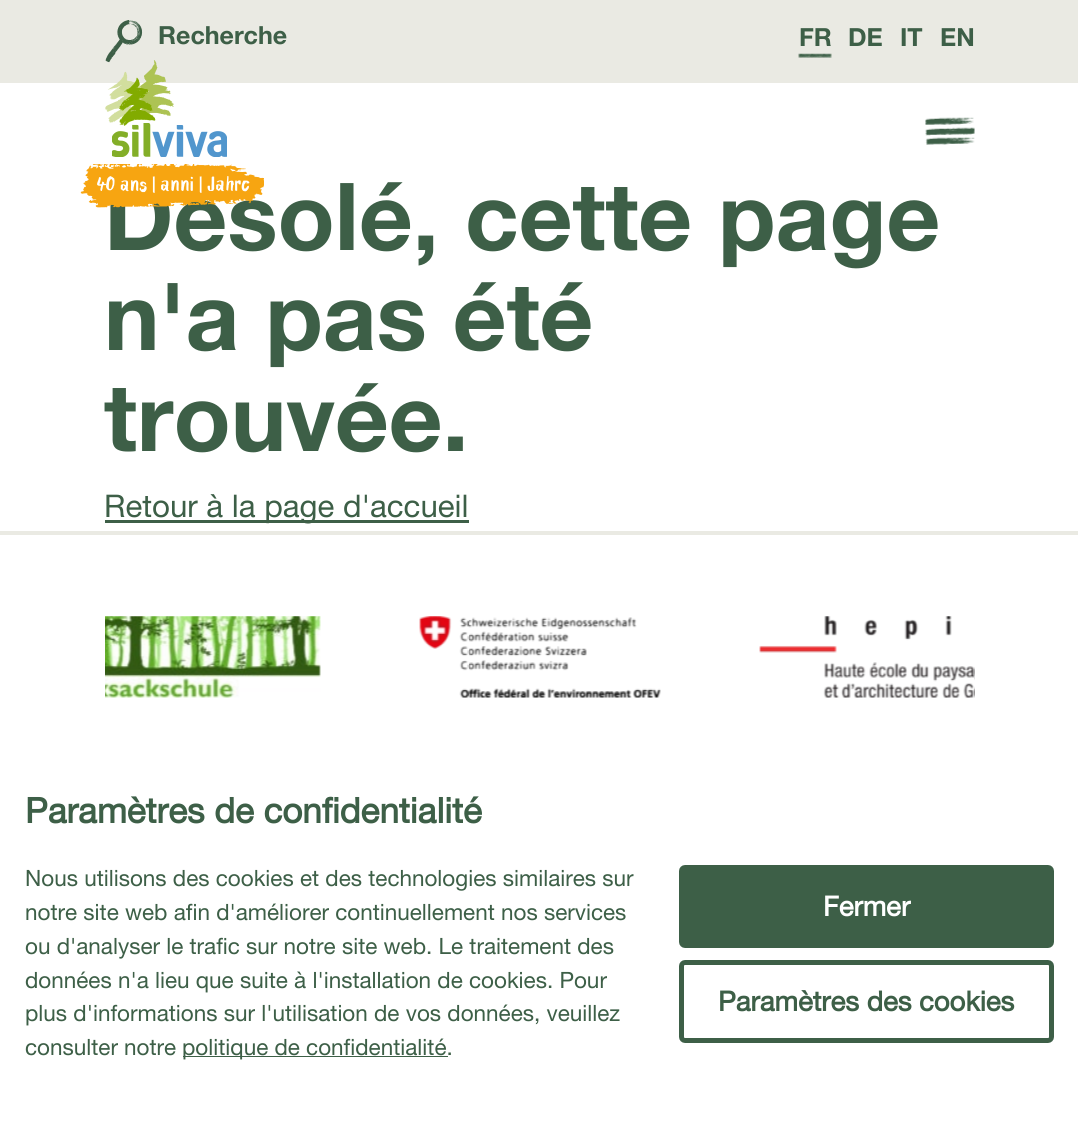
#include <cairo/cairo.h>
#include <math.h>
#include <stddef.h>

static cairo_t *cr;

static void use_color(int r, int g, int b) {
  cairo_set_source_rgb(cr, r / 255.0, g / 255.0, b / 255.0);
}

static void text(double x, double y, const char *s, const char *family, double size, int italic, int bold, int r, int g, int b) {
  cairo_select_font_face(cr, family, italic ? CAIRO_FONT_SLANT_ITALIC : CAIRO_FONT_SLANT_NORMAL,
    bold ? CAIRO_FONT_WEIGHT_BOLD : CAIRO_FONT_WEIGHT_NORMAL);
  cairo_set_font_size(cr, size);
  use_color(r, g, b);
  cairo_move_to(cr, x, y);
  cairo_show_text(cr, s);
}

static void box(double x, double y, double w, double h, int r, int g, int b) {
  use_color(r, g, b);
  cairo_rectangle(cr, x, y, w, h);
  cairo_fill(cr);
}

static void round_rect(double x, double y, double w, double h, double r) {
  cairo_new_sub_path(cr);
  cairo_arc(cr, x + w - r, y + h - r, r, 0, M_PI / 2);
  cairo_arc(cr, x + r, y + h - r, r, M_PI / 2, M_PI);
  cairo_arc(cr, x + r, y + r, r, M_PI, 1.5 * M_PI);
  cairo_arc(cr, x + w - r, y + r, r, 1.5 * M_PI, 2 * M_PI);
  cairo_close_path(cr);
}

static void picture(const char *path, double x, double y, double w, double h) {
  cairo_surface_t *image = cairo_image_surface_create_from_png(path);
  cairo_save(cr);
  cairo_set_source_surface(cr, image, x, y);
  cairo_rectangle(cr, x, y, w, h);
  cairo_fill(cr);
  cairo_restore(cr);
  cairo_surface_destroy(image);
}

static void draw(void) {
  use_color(255, 255, 255);
  cairo_paint(cr);
  box(0, 0, 1078, 83, 234, 234, 227);
  picture("img_01.png", 105, 20, 38, 43);
  picture("img_02.png", 798, 53, 34, 5);
  picture("img_03.png", 105, 60, 122, 97);
  picture("img_05.png", 925, 117, 50, 28);
  box(105, 520, 364, 3, 61, 95, 71);
  box(0, 531, 1078, 4, 234, 234, 227);
  picture("img_06.png", 105, 616, 216, 82);
  picture("img_07.png", 419, 616, 242, 82);
  picture("img_08.png", 759, 616, 216, 82);
  box(183, 1056, 265, 1, 61, 95, 71);
  round_rect(681.5, 867.5, 370, 78, 3.5);
  cairo_fill_preserve(cr);
  cairo_set_line_width(cr, 5);
  cairo_stroke(cr);
  round_rect(681.5, 962.5, 370, 78, 3.5);
  cairo_stroke(cr);
  text(158, 44, "Recherche", "Helvetica Neue", 25, 0, 1, 61, 95, 71);
  text(799, 46, "FR", "Helvetica Neue", 25, 0, 1, 61, 95, 71);
  text(848, 46, "DE", "Helvetica Neue", 25, 0, 1, 61, 95, 71);
  text(900, 46, "IT", "Helvetica Neue", 25, 0, 1, 61, 95, 71);
  text(940, 46, "EN", "Helvetica Neue", 25, 0, 1, 61, 95, 71);
  text(104, 250, "Désolé, cette page", "Helvetica Neue", 93.75, 0, 1, 61, 95, 71);
  picture("img_04.png", 80, 164, 184, 44);
  text(104, 350, "n'a pas été", "Helvetica Neue", 93.75, 0, 1, 61, 95, 71);
  text(104, 451, "trouvée.", "Helvetica Neue", 93.75, 0, 1, 61, 95, 71);
  text(104, 517, "Retour à la page d'accueil", "Helvetica Neue", 31.25, 0, 0, 61, 95, 71);
  text(25, 823, "Paramètres de confidentialité", "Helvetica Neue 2", 35, 0, 1, 61, 95, 71);
  text(25, 886, "Nous utilisons des cookies et des technologies similaires sur", "Helvetica Neue", 22.5, 0, 0, 61, 95, 71);
  text(25, 920, "notre site web afin d'améliorer continuellement nos services", "Helvetica Neue", 22.5, 0, 0, 61, 95, 71);
  text(25, 954, "ou d'analyser le trafic sur notre site web. Le traitement des", "Helvetica Neue", 22.5, 0, 0, 61, 95, 71);
  text(25, 988, "données n'a lieu que suite à l'installation de cookies. Pour", "Helvetica Neue", 22.5, 0, 0, 61, 95, 71);
  text(25, 1021, "plus d'informations sur l'utilisation de vos données, veuillez", "Helvetica Neue", 22.5, 0, 0, 61, 95, 71);
  text(25, 1055, "consulter notre", "Helvetica Neue", 22.5, 0, 0, 61, 95, 71);
  text(182, 1055, "politique de confidentialité.", "Helvetica Neue", 22.5, 0, 0, 61, 95, 71);
  text(823, 916, "Fermer", "Helvetica Neue 2", 27.5, 0, 1, 255, 255, 255);
  text(718, 1011, "Paramètres des cookies", "Helvetica Neue 2", 27.5, 0, 1, 61, 95, 71);
}

int main(void) {
  cairo_surface_t *surface = cairo_image_surface_create(CAIRO_FORMAT_RGB24, 1078, 1143);
  cr = cairo_create(surface);
  cairo_font_options_t *options = cairo_font_options_create();
  cairo_font_options_set_hint_metrics(options, CAIRO_HINT_METRICS_OFF);
  cairo_font_options_set_hint_style(options, CAIRO_HINT_STYLE_NONE);
  cairo_set_font_options(cr, options);
  cairo_set_miter_limit(cr, 4);
  draw();
  cairo_surface_write_to_png(surface, "out.png");
  cairo_font_options_destroy(options);
  cairo_destroy(cr);
  cairo_surface_destroy(surface);
  return 0;
}
